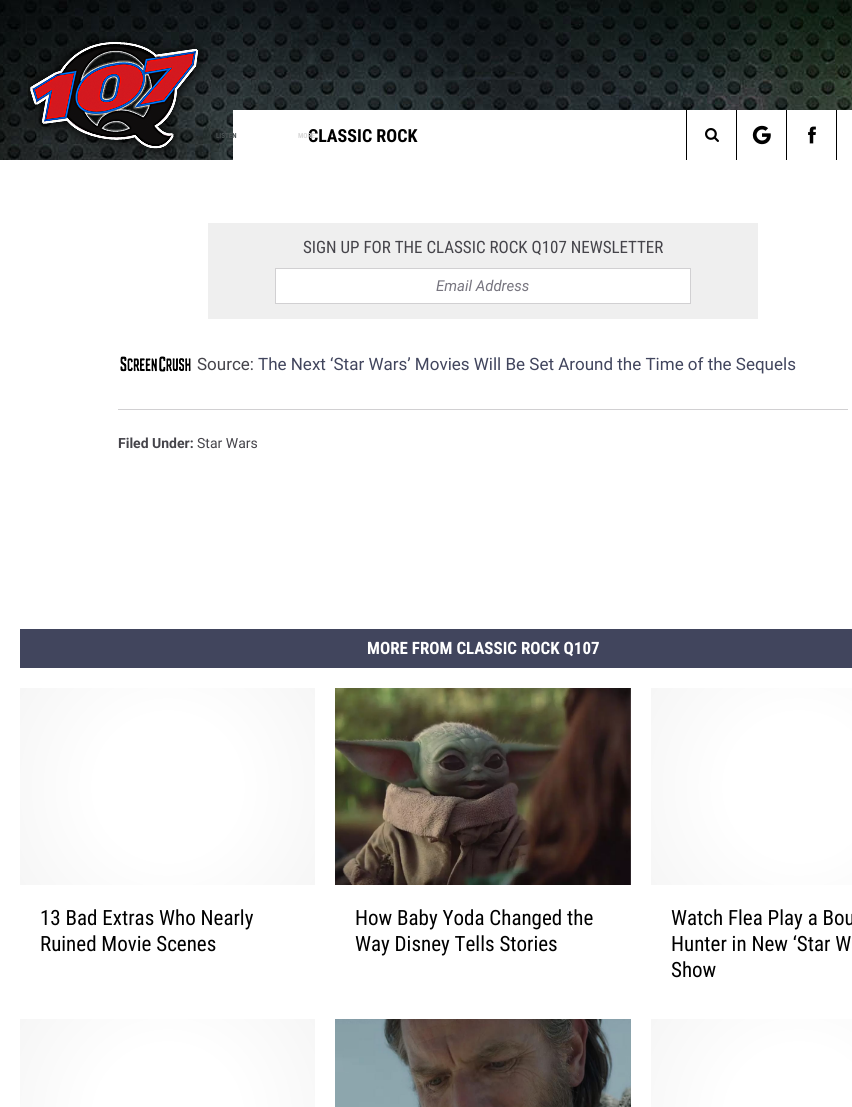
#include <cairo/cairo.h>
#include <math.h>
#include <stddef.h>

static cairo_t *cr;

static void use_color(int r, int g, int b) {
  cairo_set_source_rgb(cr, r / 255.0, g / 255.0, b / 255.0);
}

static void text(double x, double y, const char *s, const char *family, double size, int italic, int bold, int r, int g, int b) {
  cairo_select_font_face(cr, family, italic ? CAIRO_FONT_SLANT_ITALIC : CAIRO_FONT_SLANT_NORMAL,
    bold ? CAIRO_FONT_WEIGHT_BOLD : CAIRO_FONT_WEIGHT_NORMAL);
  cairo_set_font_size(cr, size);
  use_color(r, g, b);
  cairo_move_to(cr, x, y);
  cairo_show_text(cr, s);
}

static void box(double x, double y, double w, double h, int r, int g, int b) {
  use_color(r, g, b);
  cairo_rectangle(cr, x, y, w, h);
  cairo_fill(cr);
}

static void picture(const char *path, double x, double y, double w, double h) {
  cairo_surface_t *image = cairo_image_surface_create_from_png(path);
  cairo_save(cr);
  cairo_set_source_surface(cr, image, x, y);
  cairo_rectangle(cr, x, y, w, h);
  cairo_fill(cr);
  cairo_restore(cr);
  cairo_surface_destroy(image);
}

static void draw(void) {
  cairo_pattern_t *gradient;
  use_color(255, 255, 255);
  cairo_paint(cr);
  picture("img_01.png", 0, 0, 852, 160);
  box(233, 110, 619, 50, 255, 255, 255);
  box(686, 110, 1, 50, 0, 0, 0);
  picture("img_03.png", 705, 128, 14, 14);
  box(736, 110, 1, 50, 0, 0, 0);
  picture("img_04.png", 752, 125, 19, 20);
  box(786, 110, 1, 50, 0, 0, 0);
  picture("img_05.png", 808, 126, 8, 18);
  box(836, 110, 1, 50, 0, 0, 0);
  box(208, 223, 550, 96, 239, 239, 239);
  use_color(255, 255, 255);
  cairo_rectangle(cr, 275.5, 268.5, 415, 35);
  cairo_fill_preserve(cr);
  use_color(209, 208, 210);
  cairo_set_line_width(cr, 1);
  cairo_stroke(cr);
  picture("img_06.png", 120, 356, 71, 16);
  box(118, 409, 730, 1, 209, 208, 210);
  box(20, 629, 832, 39, 65, 69, 93);
  gradient = cairo_pattern_create_radial(168, 787, 0, 168, 787, 177);
  cairo_pattern_add_color_stop_rgba(gradient, 0.4, 1, 1, 1, 1);
  cairo_pattern_add_color_stop_rgba(gradient, 1, 0.965, 0.965, 0.965, 1);
  cairo_set_source(cr, gradient);
  cairo_pattern_destroy(gradient);
  cairo_rectangle(cr, 20, 688, 295, 197);
  cairo_fill(cr);
  picture("img_07.png", 335, 688, 296, 197);
  gradient = cairo_pattern_create_radial(799, 787, 0, 799, 787, 177);
  cairo_pattern_add_color_stop_rgba(gradient, 0.4, 1, 1, 1, 1);
  cairo_pattern_add_color_stop_rgba(gradient, 1, 0.965, 0.965, 0.965, 1);
  cairo_set_source(cr, gradient);
  cairo_pattern_destroy(gradient);
  cairo_rectangle(cr, 651, 688, 201, 197);
  cairo_fill(cr);
  gradient = cairo_pattern_create_radial(168, 1118, 0, 168, 1118, 177);
  cairo_pattern_add_color_stop_rgba(gradient, 0.4, 1, 1, 1, 1);
  cairo_pattern_add_color_stop_rgba(gradient, 1, 0.965, 0.965, 0.965, 1);
  cairo_set_source(cr, gradient);
  cairo_pattern_destroy(gradient);
  cairo_rectangle(cr, 20, 1019, 295, 88);
  cairo_fill(cr);
  picture("img_08.png", 335, 1019, 296, 88);
  gradient = cairo_pattern_create_radial(799, 1118, 0, 799, 1118, 177);
  cairo_pattern_add_color_stop_rgba(gradient, 0.4, 1, 1, 1, 1);
  cairo_pattern_add_color_stop_rgba(gradient, 1, 0.965, 0.965, 0.965, 1);
  cairo_set_source(cr, gradient);
  cairo_pattern_destroy(gradient);
  cairo_rectangle(cr, 651, 1019, 201, 88);
  cairo_fill(cr);
  text(194, 138, "I", "Roboto Condensed", 7, 0, 1, 34, 40, 41);
  picture("img_02.png", 28, 36, 176, 119);
  text(216, 138, "LISTEN", "Roboto Condensed", 7, 0, 1, 75, 82, 83);
  text(308, 142, "CLASSIC ROCK", "Roboto Condensed", 18, 0, 1, 0, 0, 0);
  text(298, 138, "MORE", "Roboto Condensed", 7, 0, 1, 216, 216, 216);
  text(303, 253, "SIGN UP FOR THE CLASSIC ROCK Q107 NEWSLETTER", "Roboto Condensed", 17, 0, 0, 69, 68, 74);
  text(436, 291, "Email Address", "Roboto", 15, 1, 0, 119, 117, 127);
  text(197, 370, "Source:", "Roboto", 17, 0, 0, 69, 68, 74);
  text(258, 370, "The Next ‘Star Wars’ Movies Will Be Set Around the Time of the Sequels", "Roboto", 17, 0, 0, 65, 69, 93);
  text(118, 448, "Filed Under:", "Roboto", 14, 0, 1, 69, 68, 74);
  text(197, 448, "Star Wars", "Roboto", 14, 0, 0, 69, 68, 74);
  text(367, 654, "MORE FROM CLASSIC ROCK Q107", "Roboto Condensed", 17, 0, 1, 255, 255, 255);
  text(40, 925, "13 Bad Extras Who Nearly", "Roboto Condensed", 21, 0, 0, 0, 0, 0);
  text(40, 951, "Ruined Movie Scenes", "Roboto Condensed", 21, 0, 0, 0, 0, 0);
  text(355, 925, "How Baby Yoda Changed the", "Roboto Condensed", 21, 0, 0, 0, 0, 0);
  text(355, 951, "Way Disney Tells Stories", "Roboto Condensed", 21, 0, 0, 0, 0, 0);
  text(671, 925, "Watch Flea Play a Bou", "Roboto Condensed", 21, 0, 0, 0, 0, 0);
  text(671, 951, "Hunter in New ‘Star W", "Roboto Condensed", 21, 0, 0, 0, 0, 0);
  text(671, 977, "Show", "Roboto Condensed", 21, 0, 0, 0, 0, 0);
}

int main(void) {
  cairo_surface_t *surface = cairo_image_surface_create(CAIRO_FORMAT_RGB24, 852, 1107);
  cr = cairo_create(surface);
  cairo_font_options_t *options = cairo_font_options_create();
  cairo_font_options_set_hint_metrics(options, CAIRO_HINT_METRICS_OFF);
  cairo_font_options_set_hint_style(options, CAIRO_HINT_STYLE_NONE);
  cairo_set_font_options(cr, options);
  cairo_set_miter_limit(cr, 4);
  draw();
  cairo_surface_write_to_png(surface, "out.png");
  cairo_font_options_destroy(options);
  cairo_destroy(cr);
  cairo_surface_destroy(surface);
  return 0;
}
